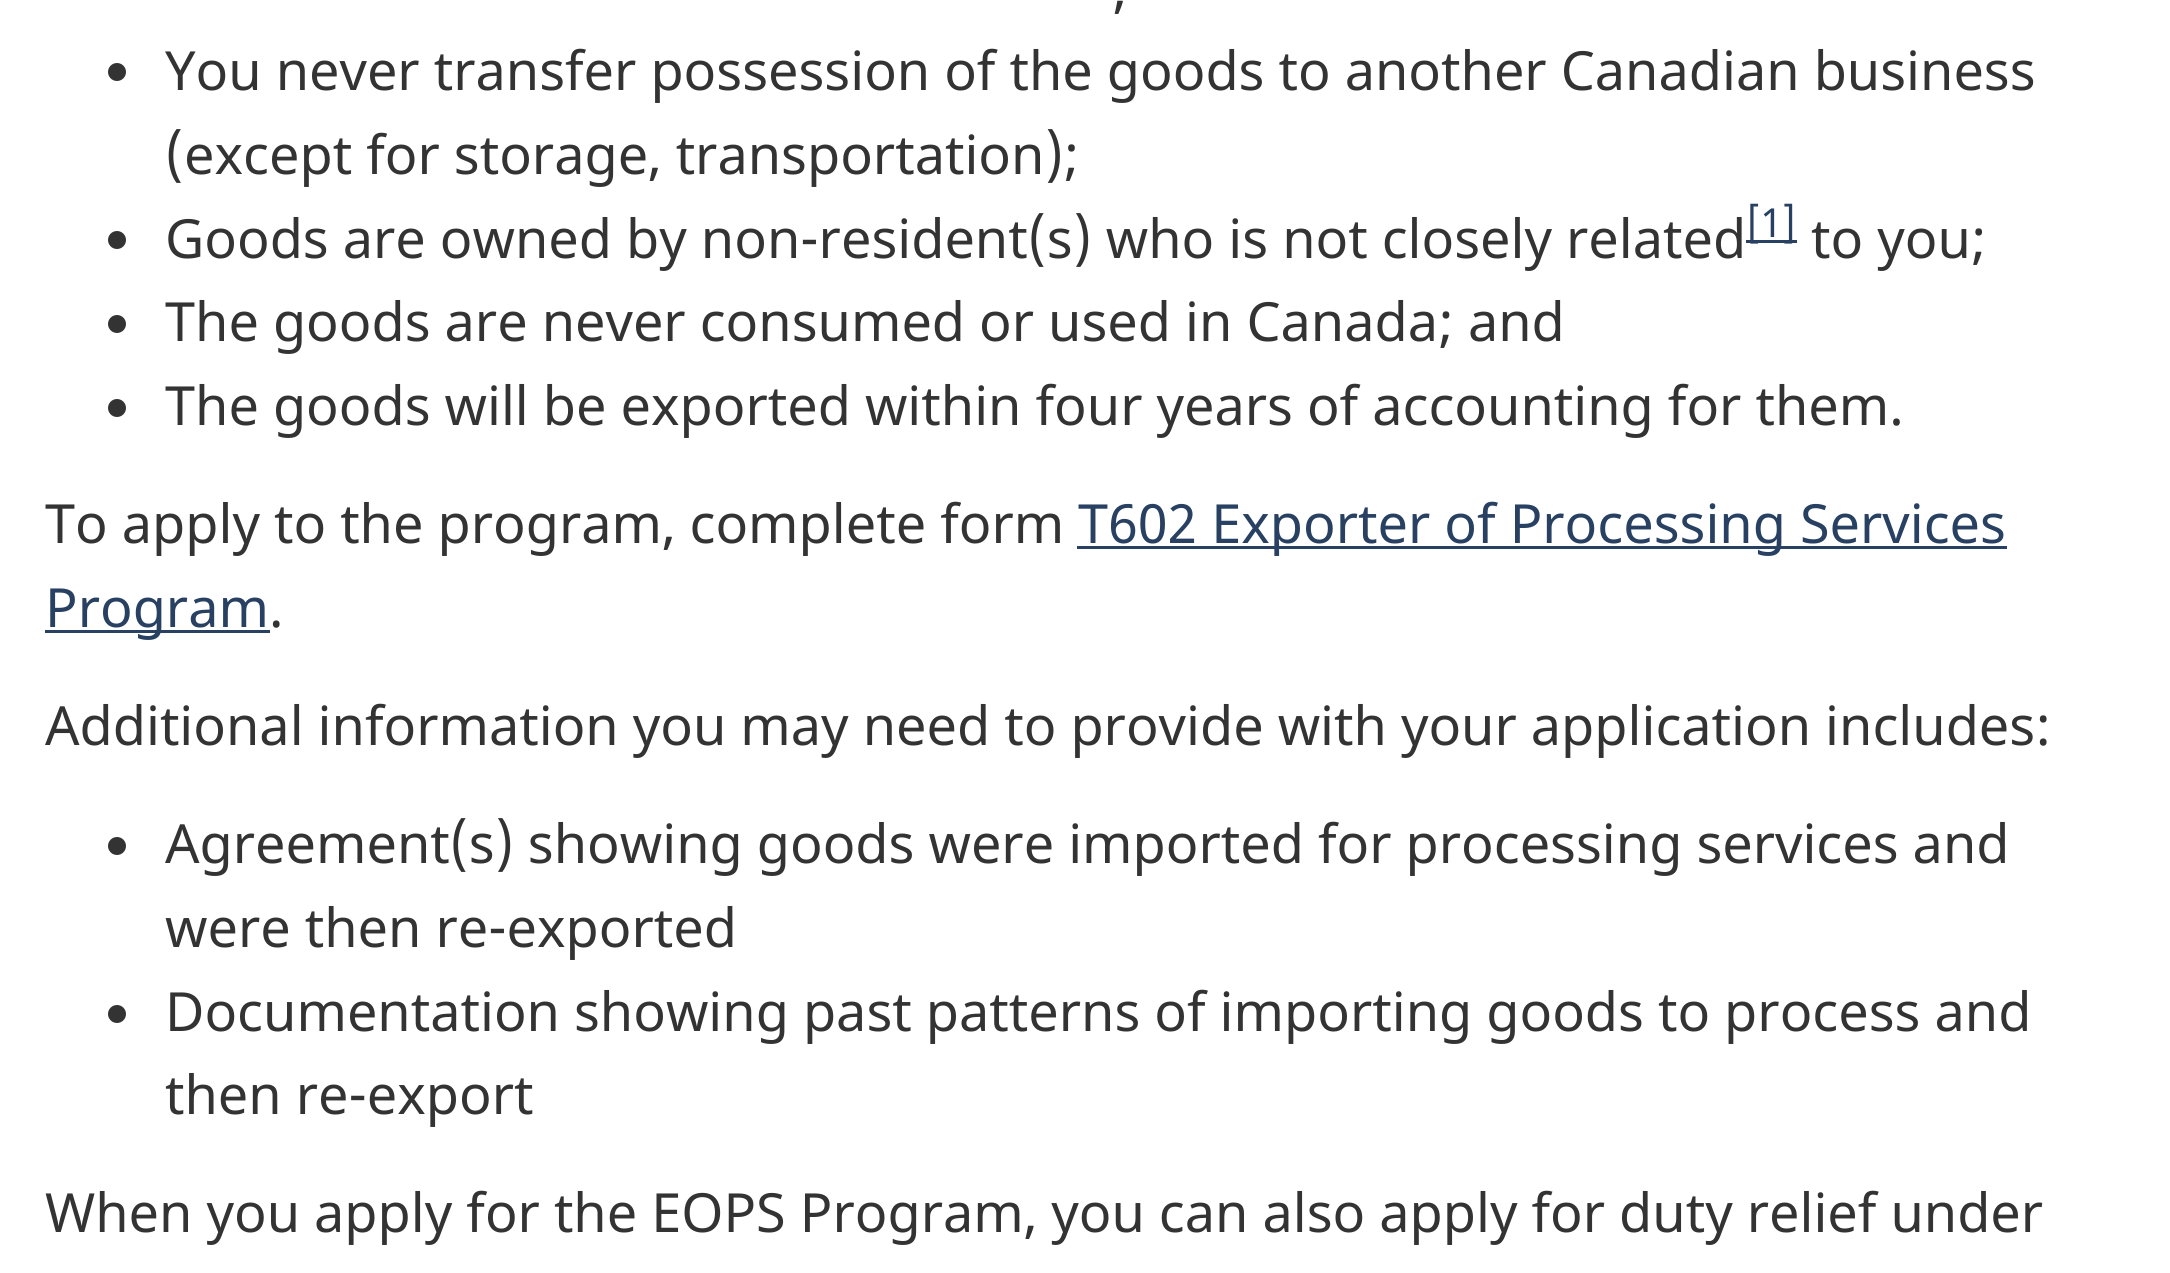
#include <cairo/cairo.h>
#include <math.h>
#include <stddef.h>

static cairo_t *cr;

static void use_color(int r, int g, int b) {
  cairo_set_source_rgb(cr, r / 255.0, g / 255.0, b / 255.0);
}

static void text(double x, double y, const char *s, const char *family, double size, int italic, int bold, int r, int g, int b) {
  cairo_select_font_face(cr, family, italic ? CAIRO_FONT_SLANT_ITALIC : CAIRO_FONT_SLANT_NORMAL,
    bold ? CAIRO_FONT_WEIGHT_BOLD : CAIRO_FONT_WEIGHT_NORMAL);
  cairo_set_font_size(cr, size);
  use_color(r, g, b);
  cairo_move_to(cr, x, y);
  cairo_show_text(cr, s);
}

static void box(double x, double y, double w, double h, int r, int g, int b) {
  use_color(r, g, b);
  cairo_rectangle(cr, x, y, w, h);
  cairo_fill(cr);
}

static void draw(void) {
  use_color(255, 255, 255);
  cairo_paint(cr);
  use_color(51, 51, 51);
  cairo_arc(cr, 117, 72, 9, 0, 2 * M_PI);
  cairo_fill(cr);
  cairo_arc(cr, 117, 240, 9, 0, 2 * M_PI);
  cairo_fill(cr);
  box(1746, 240, 51, 3, 40, 65, 98);
  use_color(51, 51, 51);
  cairo_arc(cr, 117, 324, 9, 0, 2 * M_PI);
  cairo_fill(cr);
  cairo_arc(cr, 117, 408, 9, 0, 2 * M_PI);
  cairo_fill(cr);
  box(1077, 546, 930, 3, 40, 65, 98);
  box(45, 630, 225, 3, 40, 65, 98);
  use_color(51, 51, 51);
  cairo_arc(cr, 117, 846, 9, 0, 2 * M_PI);
  cairo_fill(cr);
  cairo_arc(cr, 117, 1014, 9, 0, 2 * M_PI);
  cairo_fill(cr);
  text(1113, 7, ",", "Noto Sans", 54, 0, 0, 51, 51, 51);
  text(165, 90, "You never transfer possession of the goods to another Canadian business", "Noto Sans", 54, 0, 0, 51, 51, 51);
  text(165, 174, "(except for storage, transportation);", "Noto Sans", 54, 0, 0, 51, 51, 51);
  text(165, 258, "Goods are owned by non-resident(s) who is not closely related", "Noto Sans", 54, 0, 0, 51, 51, 51);
  text(1746, 237, "[1]", "Noto Sans", 40, 0, 0, 40, 65, 98);
  text(1811, 258, "to you;", "Noto Sans", 54, 0, 0, 51, 51, 51);
  text(165, 341, "The goods are never consumed or used in Canada; and", "Noto Sans", 54, 0, 0, 51, 51, 51);
  text(165, 425, "The goods will be exported within four years of accounting for them.", "Noto Sans", 54, 0, 0, 51, 51, 51);
  text(45, 543, "To apply to the program, complete form", "Noto Sans", 54, 0, 0, 51, 51, 51);
  text(1078, 543, "T602 Exporter of Processing Services", "Noto Sans", 54, 0, 0, 40, 65, 98);
  text(45, 627, "Program", "Noto Sans", 54, 0, 0, 40, 65, 98);
  text(269, 627, ".", "Noto Sans", 54, 0, 0, 51, 51, 51);
  text(45, 745, "Additional information you may need to provide with your application includes:", "Noto Sans", 54, 0, 0, 51, 51, 51);
  text(165, 863, "Agreement(s) showing goods were imported for processing services and", "Noto Sans", 54, 0, 0, 51, 51, 51);
  text(165, 947, "were then re-exported", "Noto Sans", 54, 0, 0, 51, 51, 51);
  text(165, 1031, "Documentation showing past patterns of importing goods to process and", "Noto Sans", 54, 0, 0, 51, 51, 51);
  text(165, 1114, "then re-export", "Noto Sans", 54, 0, 0, 51, 51, 51);
  text(45, 1232, "When you apply for the EOPS Program, you can also apply for duty relief under", "Noto Sans", 54, 0, 0, 51, 51, 51);
}

int main(void) {
  cairo_surface_t *surface = cairo_image_surface_create(CAIRO_FORMAT_RGB24, 2170, 1273);
  cr = cairo_create(surface);
  cairo_font_options_t *options = cairo_font_options_create();
  cairo_font_options_set_hint_metrics(options, CAIRO_HINT_METRICS_OFF);
  cairo_font_options_set_hint_style(options, CAIRO_HINT_STYLE_NONE);
  cairo_set_font_options(cr, options);
  cairo_set_miter_limit(cr, 4);
  draw();
  cairo_surface_write_to_png(surface, "out.png");
  cairo_font_options_destroy(options);
  cairo_destroy(cr);
  cairo_surface_destroy(surface);
  return 0;
}
